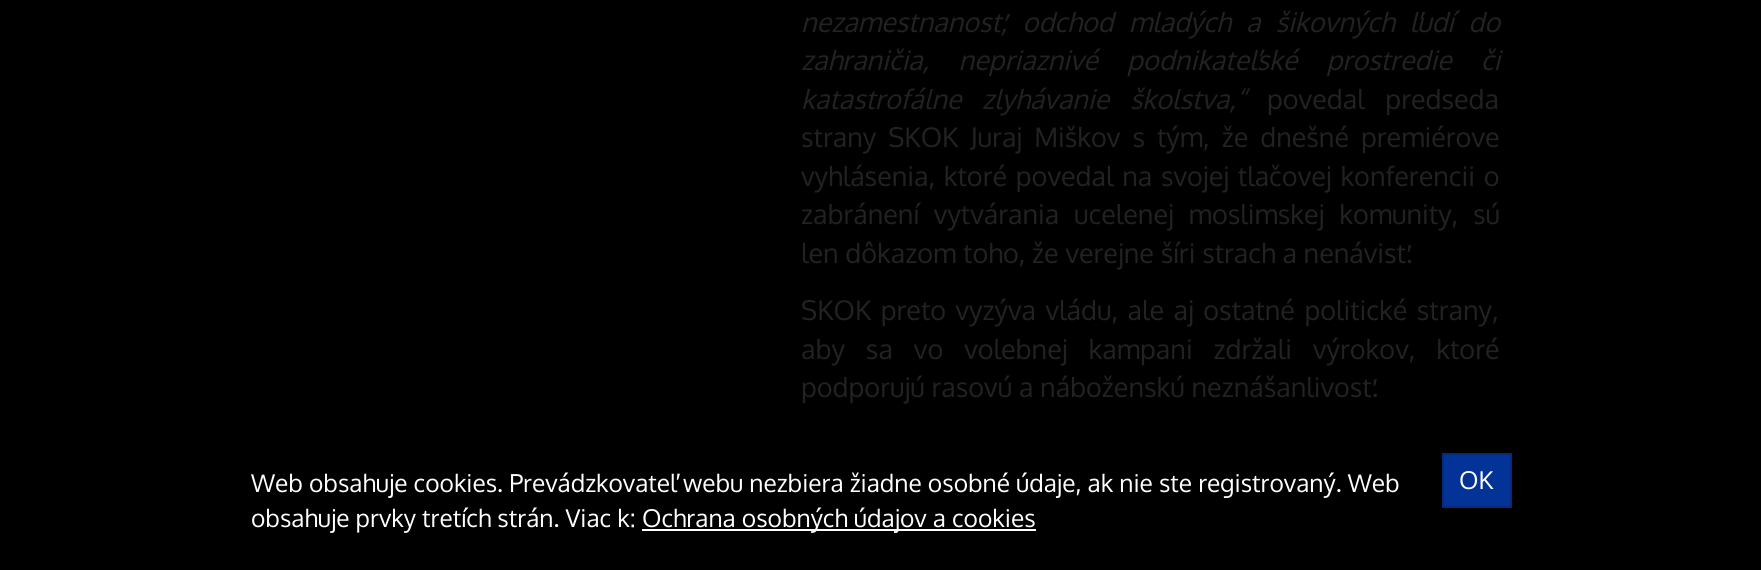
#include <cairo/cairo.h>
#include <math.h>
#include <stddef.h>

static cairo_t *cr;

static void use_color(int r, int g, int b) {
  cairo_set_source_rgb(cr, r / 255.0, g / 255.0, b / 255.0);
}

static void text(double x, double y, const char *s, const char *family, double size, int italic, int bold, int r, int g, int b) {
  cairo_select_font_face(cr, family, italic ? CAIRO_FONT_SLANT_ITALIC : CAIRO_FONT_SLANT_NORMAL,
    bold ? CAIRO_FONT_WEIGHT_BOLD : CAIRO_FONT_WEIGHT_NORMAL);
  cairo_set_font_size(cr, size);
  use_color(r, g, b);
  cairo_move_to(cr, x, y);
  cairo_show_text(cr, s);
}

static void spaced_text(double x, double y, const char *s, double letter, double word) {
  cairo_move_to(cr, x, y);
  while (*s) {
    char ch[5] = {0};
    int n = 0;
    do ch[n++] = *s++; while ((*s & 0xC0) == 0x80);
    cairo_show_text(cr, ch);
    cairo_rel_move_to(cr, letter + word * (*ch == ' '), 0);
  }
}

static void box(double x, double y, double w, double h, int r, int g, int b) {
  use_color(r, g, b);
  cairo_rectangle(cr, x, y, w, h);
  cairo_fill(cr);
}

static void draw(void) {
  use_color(0, 0, 0);
  cairo_paint(cr);
  box(642, 529, 394, 2, 255, 255, 255);
  use_color(3, 51, 151);
  cairo_rectangle(cr, 1443, 454, 68, 53);
  cairo_fill_preserve(cr);
  use_color(3, 43, 126);
  cairo_stroke(cr);
  cairo_select_font_face(cr, "Oxygen", CAIRO_FONT_SLANT_ITALIC, CAIRO_FONT_WEIGHT_NORMAL);
  cairo_set_font_size(cr, 26.95);
  use_color(34, 34, 34);
  spaced_text(801, 32, "nezamestnanosť, odchod mladých a šikovných ľudí do", 0, 8.5);
  spaced_text(801, 70, "zahraničia, nepriaznivé podnikateľské prostredie či", 0, 22.5);
  spaced_text(801, 109, "katastrofálne zlyhávanie školstva,“", 0, 14);
  cairo_select_font_face(cr, "Oxygen", CAIRO_FONT_SLANT_NORMAL, CAIRO_FONT_WEIGHT_NORMAL);
  spaced_text(1267, 109, "povedal predseda", 0, 14);
  spaced_text(801, 147, "strany SKOK Juraj Miškov s tým, že dnešné premiérove", 0, 5.25);
  spaced_text(801, 186, "vyhlásenia, ktoré povedal na svojej tlačovej konferencii o", 0, 2);
  spaced_text(801, 224, "zabránení vytvárania ucelenej moslimskej komunity, sú", 0, 8);
  text(801, 263, "len dôkazom toho, že verejne šíri strach a nenávisť.", "Oxygen", 26.95, 0, 0, 34, 34, 34);
  spaced_text(801, 320, "SKOK preto vyzýva vládu, ale aj ostatné politické strany,", 0, 2.75);
  spaced_text(801, 359, "aby sa vo volebnej kampani zdržali výrokov, ktoré", 0, 14.25);
  text(801, 397, "podporujú rasovú a náboženskú neznášanlivosť.", "Oxygen", 26.95, 0, 0, 34, 34, 34);
  text(251, 492, "Web obsahuje cookies. Prevádzkovateľ webu nezbiera žiadne osobné údaje, ak nie ste registrovaný. Web", "Oxygen", 24.5, 0, 0, 255, 255, 255);
  text(251, 527, "obsahuje prvky tretích strán. Viac k:", "Oxygen", 24.5, 0, 0, 255, 255, 255);
  text(642, 527, "Ochrana osobných údajov a cookies", "Oxygen", 24.5, 0, 0, 255, 255, 255);
  text(1459, 489, "OK", "Oxygen", 24.5, 0, 0, 255, 255, 255);
}

int main(void) {
  cairo_surface_t *surface = cairo_image_surface_create(CAIRO_FORMAT_RGB24, 1761, 570);
  cr = cairo_create(surface);
  cairo_font_options_t *options = cairo_font_options_create();
  cairo_font_options_set_hint_metrics(options, CAIRO_HINT_METRICS_OFF);
  cairo_font_options_set_hint_style(options, CAIRO_HINT_STYLE_NONE);
  cairo_set_font_options(cr, options);
  cairo_set_miter_limit(cr, 4);
  draw();
  cairo_surface_write_to_png(surface, "out.png");
  cairo_font_options_destroy(options);
  cairo_destroy(cr);
  cairo_surface_destroy(surface);
  return 0;
}
